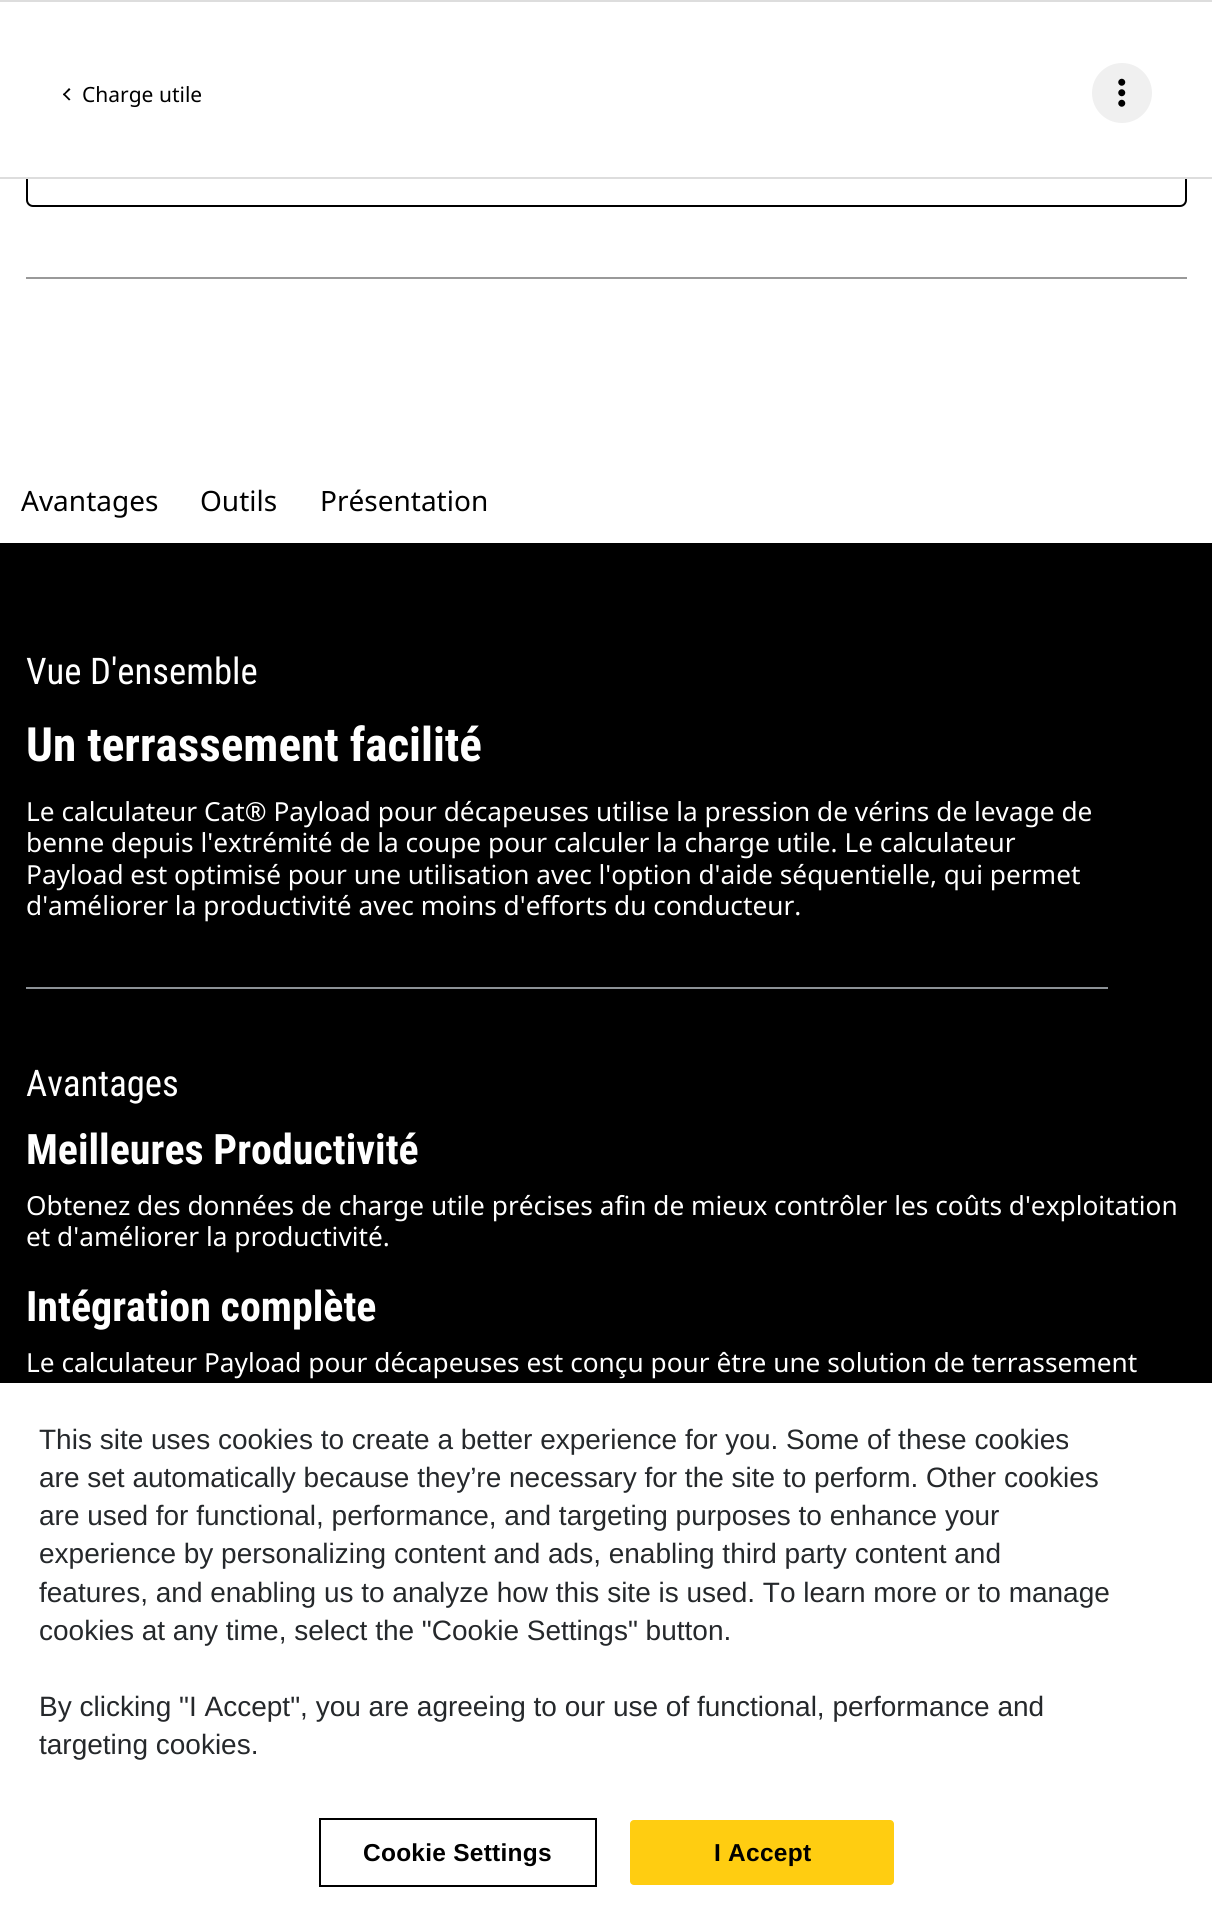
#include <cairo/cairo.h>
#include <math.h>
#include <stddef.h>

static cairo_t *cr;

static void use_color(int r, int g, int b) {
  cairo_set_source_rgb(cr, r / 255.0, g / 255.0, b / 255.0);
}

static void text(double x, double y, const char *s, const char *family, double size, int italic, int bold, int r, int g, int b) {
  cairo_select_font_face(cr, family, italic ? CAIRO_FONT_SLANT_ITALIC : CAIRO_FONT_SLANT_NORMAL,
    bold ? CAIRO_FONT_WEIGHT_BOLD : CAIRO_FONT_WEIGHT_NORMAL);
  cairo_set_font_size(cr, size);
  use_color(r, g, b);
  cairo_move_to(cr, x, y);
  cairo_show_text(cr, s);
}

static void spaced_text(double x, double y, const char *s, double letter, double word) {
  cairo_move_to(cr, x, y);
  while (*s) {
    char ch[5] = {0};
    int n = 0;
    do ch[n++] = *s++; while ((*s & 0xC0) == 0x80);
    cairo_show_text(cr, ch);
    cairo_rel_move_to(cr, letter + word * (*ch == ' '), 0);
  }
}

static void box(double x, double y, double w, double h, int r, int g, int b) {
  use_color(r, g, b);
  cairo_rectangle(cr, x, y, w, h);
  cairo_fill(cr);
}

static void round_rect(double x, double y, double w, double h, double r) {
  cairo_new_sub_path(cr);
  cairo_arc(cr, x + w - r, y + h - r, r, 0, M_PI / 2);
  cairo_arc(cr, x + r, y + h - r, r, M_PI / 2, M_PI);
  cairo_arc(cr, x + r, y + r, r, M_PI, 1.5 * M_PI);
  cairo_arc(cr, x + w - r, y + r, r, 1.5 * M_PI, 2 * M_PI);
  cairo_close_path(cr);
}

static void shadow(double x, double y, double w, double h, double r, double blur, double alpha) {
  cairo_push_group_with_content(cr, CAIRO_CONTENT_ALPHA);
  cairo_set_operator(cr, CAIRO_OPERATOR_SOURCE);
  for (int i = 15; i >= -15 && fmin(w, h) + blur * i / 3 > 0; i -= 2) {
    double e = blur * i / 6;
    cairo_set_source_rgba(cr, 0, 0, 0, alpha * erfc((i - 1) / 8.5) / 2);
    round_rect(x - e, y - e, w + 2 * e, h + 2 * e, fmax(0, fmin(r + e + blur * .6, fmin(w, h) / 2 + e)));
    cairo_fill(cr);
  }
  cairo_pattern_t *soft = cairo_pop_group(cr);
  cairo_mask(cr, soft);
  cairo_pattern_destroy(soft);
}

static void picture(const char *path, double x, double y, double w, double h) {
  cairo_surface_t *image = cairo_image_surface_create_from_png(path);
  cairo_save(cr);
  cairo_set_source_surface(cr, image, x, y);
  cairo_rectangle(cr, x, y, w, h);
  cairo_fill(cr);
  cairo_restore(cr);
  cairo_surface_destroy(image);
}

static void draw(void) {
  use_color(255, 255, 255);
  cairo_paint(cr);
  round_rect(27, 141, 1159, 65, 6);
  use_color(0, 0, 0);
  cairo_stroke(cr);
  box(26, 140, 1161, 37, 255, 255, 255);
  box(0, 0, 1212, 2, 221, 221, 221);
  box(0, 177, 1212, 2, 221, 221, 221);
  use_color(0, 0, 0);
  cairo_new_path(cr);
  cairo_move_to(cr, 70.5, 99.5);
  cairo_line_to(cr, 69, 100.5);
  cairo_line_to(cr, 63, 94.5);
  cairo_line_to(cr, 64, 93);
  cairo_close_path(cr);
  cairo_fill(cr);
  cairo_new_path(cr);
  cairo_move_to(cr, 70.5, 89.5);
  cairo_line_to(cr, 64, 95.5);
  cairo_line_to(cr, 63, 94.5);
  cairo_line_to(cr, 69, 88);
  cairo_close_path(cr);
  cairo_fill(cr);
  use_color(240, 240, 240);
  cairo_arc(cr, 1122, 93, 30, 0, 2 * M_PI);
  cairo_fill(cr);
  picture("img_01.png", 1118, 78, 8, 29);
  box(26, 277, 1161, 2, 153, 153, 153);
  box(0, 543, 1212, 840, 0, 0, 0);
  box(26, 987, 1082, 2, 140, 145, 150);
  use_color(0, 0, 0);
  shadow(0, 1383, 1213, 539, 0, 16, 0.2);
  box(0, 1383, 1212, 538, 255, 255, 255);
  cairo_rectangle(cr, 320, 1819, 276, 67);
  use_color(0, 0, 0);
  cairo_stroke(cr);
  use_color(255, 205, 17);
  round_rect(630, 1820, 264, 65, 4);
  cairo_fill(cr);
  text(82, 102, "Charge utile", "Noto Sans", 21, 0, 0, 0, 0, 0);
  text(21, 511, "Avantages", "Noto Sans", 28, 0, 0, 0, 0, 0);
  text(200, 511, "Outils", "Noto Sans", 28, 0, 0, 0, 0, 0);
  text(320, 511, "Présentation", "Noto Sans", 28, 0, 0, 0, 0, 0);
  text(26, 684, "Vue D'ensemble", "Roboto Condensed", 36.75, 0, 0, 255, 255, 255);
  text(26, 761, "Un terrassement facilité", "Roboto Condensed", 47.25, 0, 1, 255, 255, 255);
  text(26, 821, "Le calculateur Cat® Payload pour décapeuses utilise la pression de vérins de levage de", "Noto Sans", 26.25, 0, 0, 255, 255, 255);
  text(26, 852, "benne depuis l'extrémité de la coupe pour calculer la charge utile. Le calculateur", "Noto Sans", 26.25, 0, 0, 255, 255, 255);
  text(26, 884, "Payload est optimisé pour une utilisation avec l'option d'aide séquentielle, qui permet", "Noto Sans", 26.25, 0, 0, 255, 255, 255);
  text(26, 915, "d'améliorer la productivité avec moins d'efforts du conducteur.", "Noto Sans", 26.25, 0, 0, 255, 255, 255);
  text(26, 1096, "Avantages", "Roboto Condensed", 36.75, 0, 0, 255, 255, 255);
  text(26, 1164, "Meilleures Productivité", "Roboto Condensed", 42, 0, 1, 255, 255, 255);
  text(26, 1215, "Obtenez des données de charge utile précises afin de mieux contrôler les coûts d'exploitation", "Noto Sans", 26.25, 0, 0, 255, 255, 255);
  text(26, 1246, "et d'améliorer la productivité.", "Noto Sans", 26.25, 0, 0, 255, 255, 255);
  text(26, 1321, "Intégration complète", "Roboto Condensed", 42, 0, 1, 255, 255, 255);
  text(26, 1372, "Le calculateur Payload pour décapeuses est conçu pour être une solution de terrassement", "Noto Sans", 26.25, 0, 0, 255, 255, 255);
  text(39, 1449, "This site uses cookies to create a better experience for you. Some of these cookies", "Liberation Sans", 28, 0, 0, 37, 40, 43);
  text(39, 1487, "are set automatically because they’re necessary for the site to perform. Other cookies", "Liberation Sans", 28, 0, 0, 37, 40, 43);
  text(39, 1525, "are used for functional, performance, and targeting purposes to enhance your", "Liberation Sans", 28, 0, 0, 37, 40, 43);
  text(39, 1563, "experience by personalizing content and ads, enabling third party content and", "Liberation Sans", 28, 0, 0, 37, 40, 43);
  text(39, 1602, "features, and enabling us to analyze how this site is used. To learn more or to manage", "Liberation Sans", 28, 0, 0, 37, 40, 43);
  text(39, 1640, "cookies at any time, select the \"Cookie Settings\" button.", "Liberation Sans", 28, 0, 0, 37, 40, 43);
  text(39, 1716, "By clicking \"I Accept\", you are agreeing to our use of functional, performance and", "Liberation Sans", 28, 0, 0, 37, 40, 43);
  text(39, 1754, "targeting cookies.", "Liberation Sans", 28, 0, 0, 37, 40, 43);
  cairo_select_font_face(cr, "Liberation Sans", CAIRO_FONT_SLANT_NORMAL, CAIRO_FONT_WEIGHT_BOLD);
  cairo_set_font_size(cr, 24.5);
  use_color(0, 0, 0);
  spaced_text(363, 1861, "Cookie Settings", 0.25, 0);
  spaced_text(714, 1861, "I Accept", 0.25, 0);
}

int main(void) {
  cairo_surface_t *surface = cairo_image_surface_create(CAIRO_FORMAT_RGB24, 1212, 1921);
  cr = cairo_create(surface);
  cairo_font_options_t *options = cairo_font_options_create();
  cairo_font_options_set_hint_metrics(options, CAIRO_HINT_METRICS_OFF);
  cairo_font_options_set_hint_style(options, CAIRO_HINT_STYLE_NONE);
  cairo_set_font_options(cr, options);
  cairo_set_miter_limit(cr, 4);
  draw();
  cairo_surface_write_to_png(surface, "out.png");
  cairo_font_options_destroy(options);
  cairo_destroy(cr);
  cairo_surface_destroy(surface);
  return 0;
}
